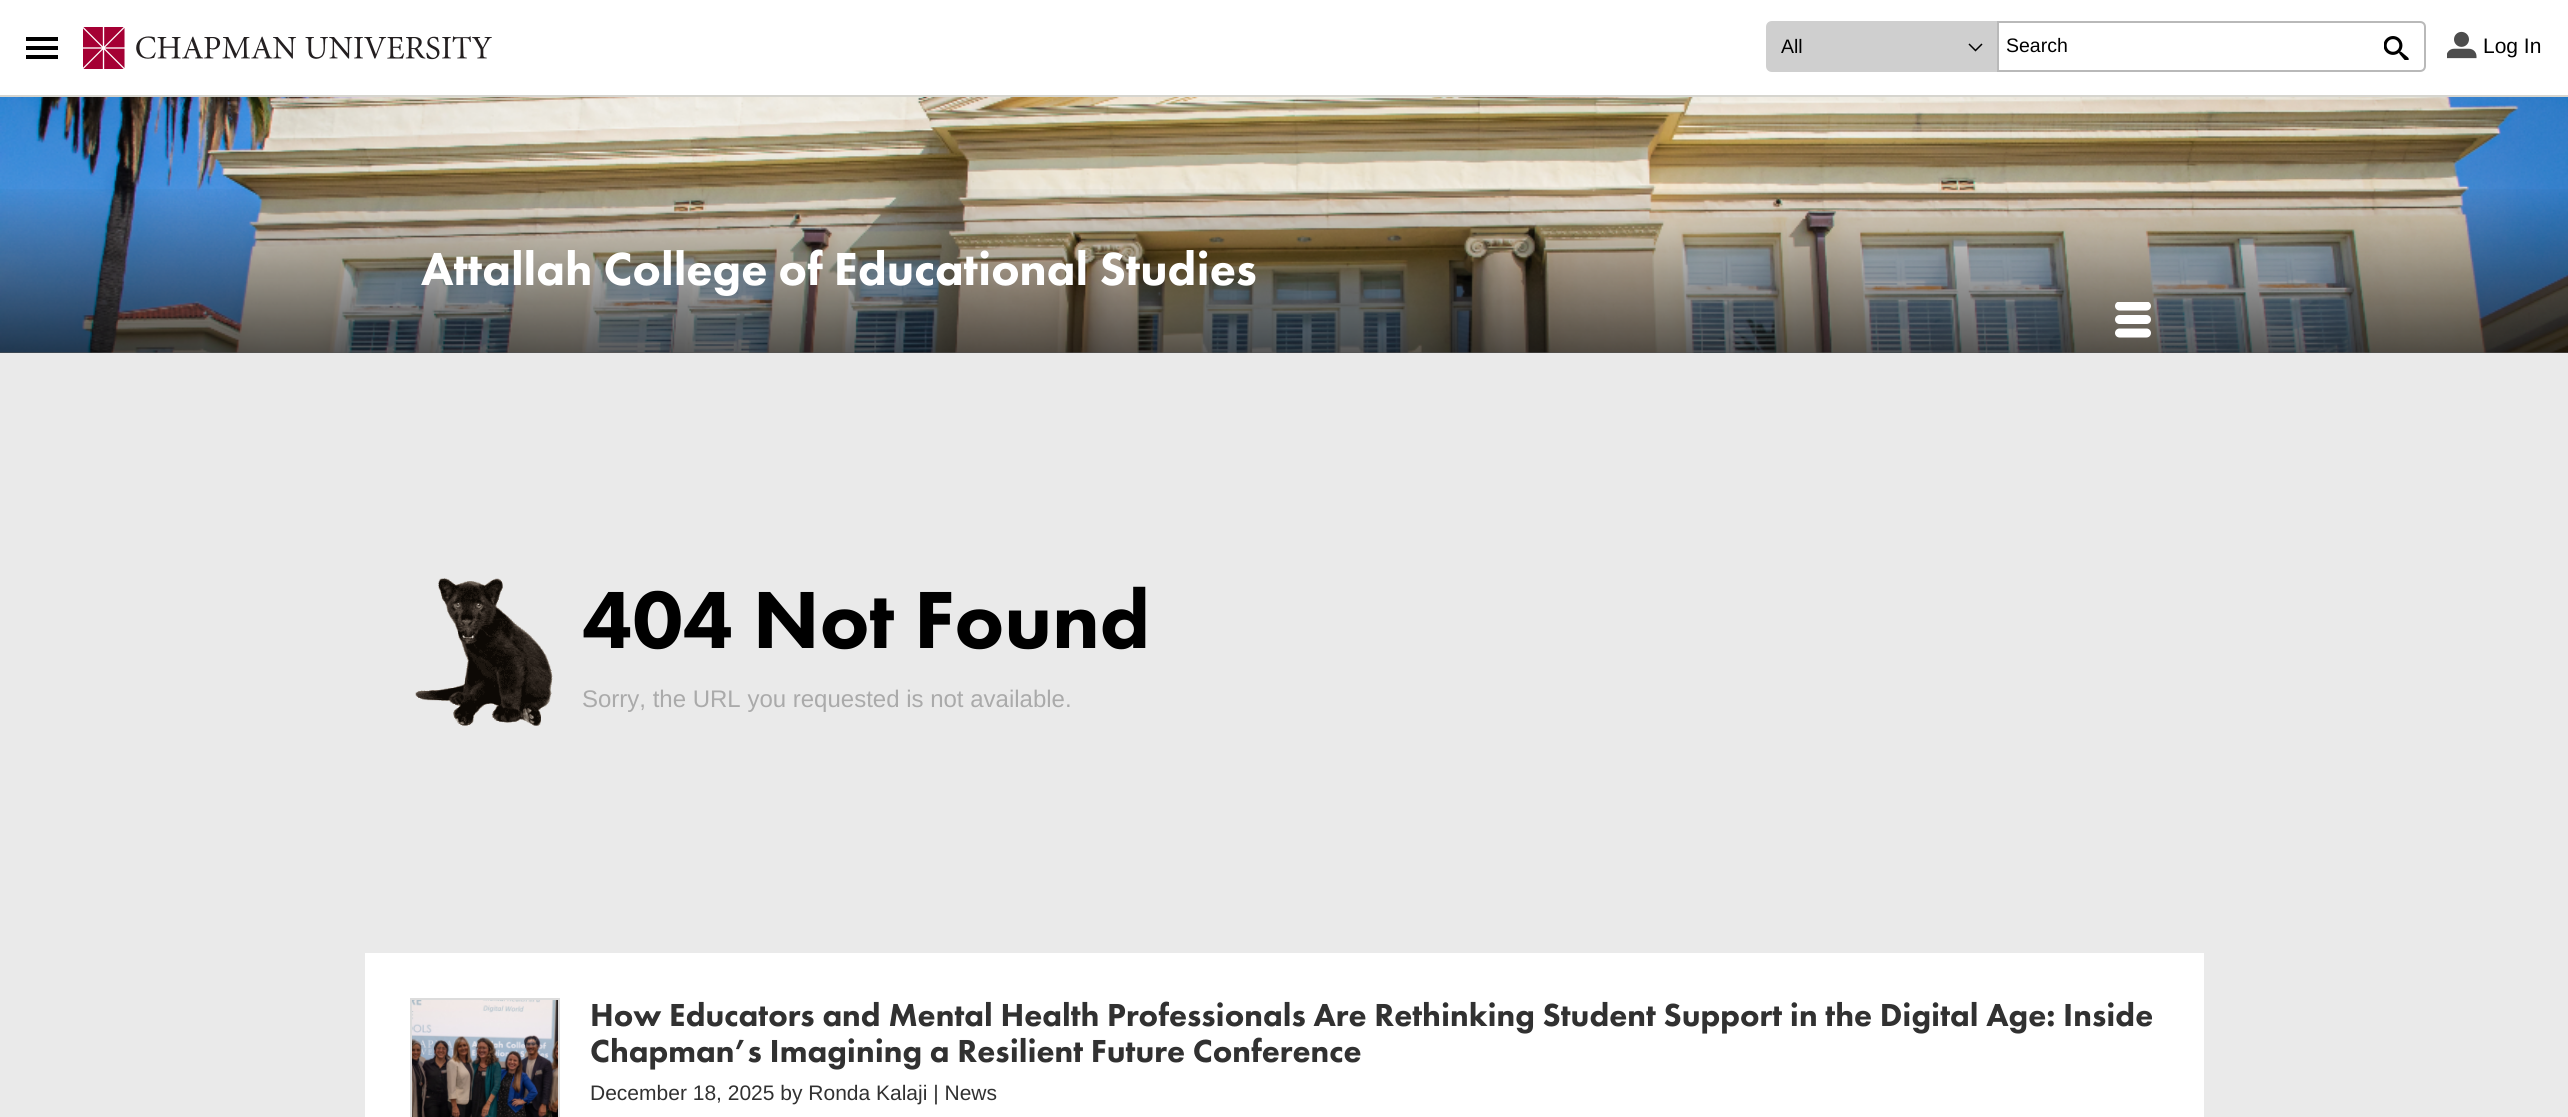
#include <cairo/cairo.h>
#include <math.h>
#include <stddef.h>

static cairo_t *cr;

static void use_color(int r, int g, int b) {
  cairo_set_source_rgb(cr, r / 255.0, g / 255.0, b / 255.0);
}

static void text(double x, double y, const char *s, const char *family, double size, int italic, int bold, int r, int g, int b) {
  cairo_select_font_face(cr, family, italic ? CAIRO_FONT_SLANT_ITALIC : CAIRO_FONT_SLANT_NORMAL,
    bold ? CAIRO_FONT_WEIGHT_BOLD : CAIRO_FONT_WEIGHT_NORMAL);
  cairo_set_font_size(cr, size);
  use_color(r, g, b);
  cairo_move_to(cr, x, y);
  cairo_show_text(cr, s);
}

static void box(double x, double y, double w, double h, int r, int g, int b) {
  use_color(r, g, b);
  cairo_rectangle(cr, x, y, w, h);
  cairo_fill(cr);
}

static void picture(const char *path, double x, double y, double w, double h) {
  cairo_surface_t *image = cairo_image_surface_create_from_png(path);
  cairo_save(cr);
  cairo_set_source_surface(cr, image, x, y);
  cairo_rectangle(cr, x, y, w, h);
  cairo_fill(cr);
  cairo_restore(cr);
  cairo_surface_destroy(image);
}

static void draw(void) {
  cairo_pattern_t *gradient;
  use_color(234, 234, 234);
  cairo_paint(cr);
  box(0, 0, 2568, 95, 255, 255, 255);
  box(0, 95, 2568, 2, 214, 213, 207);
  box(26, 37, 32, 4, 0, 0, 0);
  box(26, 46, 32, 4, 0, 0, 0);
  box(26, 55, 32, 4, 0, 0, 0);
  picture("img_01.png", 83, 27, 409, 42);
  use_color(207, 207, 207);
  cairo_new_path(cr);
  cairo_move_to(cr, 1772, 21);
  cairo_line_to(cr, 1997, 21);
  cairo_line_to(cr, 1997, 72);
  cairo_line_to(cr, 1772, 72);
  cairo_curve_to(cr, 1768.5, 72, 1766, 69.5, 1766, 66);
  cairo_line_to(cr, 1766, 27);
  cairo_curve_to(cr, 1766, 23.5, 1768.5, 21, 1772, 21);
  cairo_close_path(cr);
  cairo_fill(cr);
  cairo_new_path(cr);
  cairo_move_to(cr, 1982, 44);
  cairo_line_to(cr, 1975.5, 50.5);
  cairo_line_to(cr, 1969, 44);
  use_color(0, 0, 0);
  cairo_set_line_width(cr, 1.5);
  cairo_stroke(cr);
  cairo_new_path(cr);
  cairo_move_to(cr, 1998, 22);
  cairo_line_to(cr, 2420, 22);
  cairo_curve_to(cr, 2423, 22, 2425, 24, 2425, 27);
  cairo_line_to(cr, 2425, 66);
  cairo_curve_to(cr, 2425, 69, 2423, 71, 2420, 71);
  cairo_line_to(cr, 1998, 71);
  cairo_close_path(cr);
  use_color(185, 185, 185);
  cairo_set_line_width(cr, 2);
  cairo_stroke(cr);
  picture("img_02.png", 2384, 36, 25, 24);
  picture("img_03.png", 2447, 31, 30, 28);
  picture("img_04.png", 0, 97, 2568, 256);
  gradient = cairo_pattern_create_linear(1284, 96, 1284, 353);
  cairo_pattern_add_color_stop_rgba(gradient, 0.33, 0, 0, 0, 0);
  cairo_pattern_add_color_stop_rgba(gradient, 0.34, 0, 0, 0, 0);
  cairo_pattern_add_color_stop_rgba(gradient, 1, 0, 0, 0, 0.64);
  cairo_set_source(cr, gradient);
  cairo_pattern_destroy(gradient);
  cairo_rectangle(cr, 0, 189, 2568, 164);
  cairo_fill(cr);
  picture("img_05.png", 2115, 302, 36, 36);
  picture("img_06.png", 415, 578, 138, 148);
  box(365, 953, 1839, 164, 255, 255, 255);
  picture("img_07.png", 412, 1000, 146, 117);
  cairo_rectangle(cr, 411, 999, 148, 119);
  use_color(220, 220, 220);
  cairo_stroke(cr);
  text(1781, 53, "All", "Liberation Sans", 19.5, 0, 0, 0, 0, 0);
  text(2006, 52, "Search", "Liberation Sans", 19.5, 0, 0, 0, 0, 0);
  text(2483, 53, "Log In", "Liberation Sans", 21, 0, 0, 0, 0, 0);
  text(421, 285, "Attallah College of Educational Studies", "Futura PT Black", 48, 0, 0, 255, 255, 255);
  text(582, 648, "404 Not Found", "Futura PT Black", 84, 0, 0, 0, 0, 0);
  text(582, 707, "Sorry, the URL you requested is not available.", "Liberation Sans", 24, 0, 0, 170, 170, 170);
  text(590, 1026, "How Educators and Mental Health Professionals Are Rethinking Student Support in the Digital Age: Inside", "Futura PT Black", 33, 0, 0, 49, 49, 49);
  text(590, 1062, "Chapman’s Imagining a Resilient Future Conference", "Futura PT Black", 33, 0, 0, 49, 49, 49);
  text(590, 1100, "December 18, 2025 by Ronda Kalaji | News", "Liberation Sans", 21, 0, 0, 49, 49, 49);
}

int main(void) {
  cairo_surface_t *surface = cairo_image_surface_create(CAIRO_FORMAT_RGB24, 2568, 1117);
  cr = cairo_create(surface);
  cairo_font_options_t *options = cairo_font_options_create();
  cairo_font_options_set_hint_metrics(options, CAIRO_HINT_METRICS_OFF);
  cairo_font_options_set_hint_style(options, CAIRO_HINT_STYLE_NONE);
  cairo_set_font_options(cr, options);
  cairo_set_miter_limit(cr, 4);
  draw();
  cairo_surface_write_to_png(surface, "out.png");
  cairo_font_options_destroy(options);
  cairo_destroy(cr);
  cairo_surface_destroy(surface);
  return 0;
}
